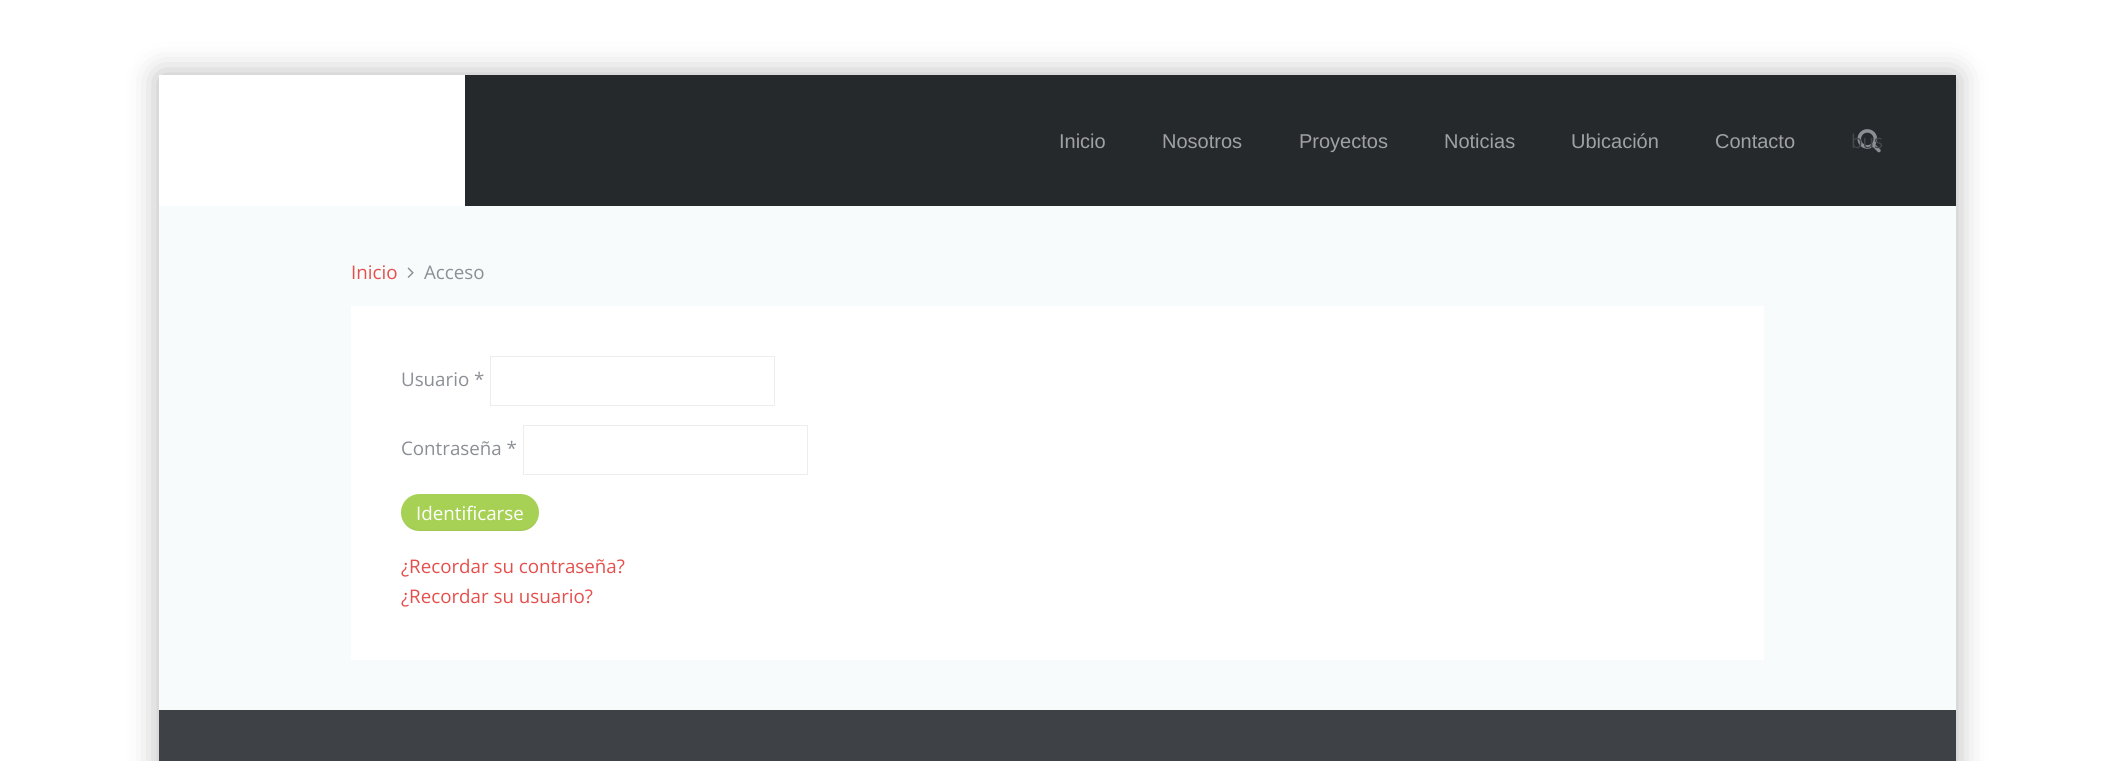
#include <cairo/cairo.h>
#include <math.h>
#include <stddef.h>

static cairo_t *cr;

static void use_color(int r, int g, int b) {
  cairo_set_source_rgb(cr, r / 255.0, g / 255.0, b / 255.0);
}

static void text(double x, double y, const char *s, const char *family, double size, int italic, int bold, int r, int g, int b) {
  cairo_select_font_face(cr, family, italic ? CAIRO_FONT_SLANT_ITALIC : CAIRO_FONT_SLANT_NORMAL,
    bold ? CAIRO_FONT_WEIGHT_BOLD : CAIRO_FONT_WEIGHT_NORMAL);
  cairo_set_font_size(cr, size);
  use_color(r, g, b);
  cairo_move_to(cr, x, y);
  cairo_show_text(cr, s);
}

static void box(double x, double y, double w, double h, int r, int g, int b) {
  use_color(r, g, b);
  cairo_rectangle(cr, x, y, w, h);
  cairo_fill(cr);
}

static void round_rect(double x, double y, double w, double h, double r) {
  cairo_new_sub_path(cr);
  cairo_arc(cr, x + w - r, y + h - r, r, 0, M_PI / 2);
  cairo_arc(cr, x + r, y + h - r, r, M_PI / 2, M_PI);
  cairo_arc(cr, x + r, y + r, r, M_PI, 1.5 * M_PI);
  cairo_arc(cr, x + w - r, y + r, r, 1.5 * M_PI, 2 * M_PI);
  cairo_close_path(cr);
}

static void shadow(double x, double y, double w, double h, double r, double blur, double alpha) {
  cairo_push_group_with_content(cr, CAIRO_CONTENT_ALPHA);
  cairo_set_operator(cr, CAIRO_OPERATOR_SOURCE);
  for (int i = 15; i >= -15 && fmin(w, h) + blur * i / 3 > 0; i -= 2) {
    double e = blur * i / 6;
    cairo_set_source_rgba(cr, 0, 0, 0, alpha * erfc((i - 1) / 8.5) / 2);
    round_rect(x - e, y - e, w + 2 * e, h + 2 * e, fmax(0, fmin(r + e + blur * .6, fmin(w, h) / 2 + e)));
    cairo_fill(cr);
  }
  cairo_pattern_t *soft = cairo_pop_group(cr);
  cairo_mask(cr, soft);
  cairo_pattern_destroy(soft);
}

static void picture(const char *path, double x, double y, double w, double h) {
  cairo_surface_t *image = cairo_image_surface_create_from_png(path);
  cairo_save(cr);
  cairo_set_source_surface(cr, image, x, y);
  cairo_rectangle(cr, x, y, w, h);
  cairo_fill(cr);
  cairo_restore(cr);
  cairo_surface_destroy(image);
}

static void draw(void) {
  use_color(255, 255, 255);
  cairo_paint(cr);
  use_color(0, 0, 0);
  shadow(159, 75, 1797, 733, 0, 15.5, 0.3);
  box(465, 75, 1491, 131, 38, 41, 44);
  box(159, 75, 306, 131, 255, 255, 255);
  picture("img_01.png", 1857, 129, 24, 24);
  box(159, 206, 1797, 504, 248, 251, 252);
  picture("img_02.png", 407, 267, 7, 11);
  box(351, 306, 1413, 354, 255, 255, 255);
  cairo_rectangle(cr, 490.5, 356.5, 284, 49);
  use_color(237, 237, 238);
  cairo_set_line_width(cr, 1);
  cairo_stroke(cr);
  cairo_rectangle(cr, 523.5, 425.5, 284, 49);
  cairo_stroke(cr);
  use_color(167, 209, 85);
  round_rect(401, 494, 138, 37, 18.5);
  cairo_fill(cr);
  cairo_set_source_rgba(cr, 0, 0, 0, 0.05);
  cairo_new_path(cr);
  cairo_move_to(cr, 401, 512);
  cairo_curve_to(cr, 401, 523, 409, 531, 420, 531);
  cairo_line_to(cr, 520, 531);
  cairo_curve_to(cr, 531, 531, 539, 523, 539, 512);
  cairo_curve_to(cr, 539, 522, 530, 530, 520, 530);
  cairo_line_to(cr, 420, 530);
  cairo_curve_to(cr, 410, 530, 401, 522, 401, 512);
  cairo_close_path(cr);
  cairo_fill(cr);
  box(159, 710, 1797, 51, 62, 65, 69);
  text(1059, 148, "Inicio", "Liberation Sans", 20, 0, 0, 160, 161, 163);
  text(1162, 148, "Nosotros", "Liberation Sans", 20, 0, 0, 160, 161, 163);
  text(1299, 148, "Proyectos", "Liberation Sans", 20, 0, 0, 160, 161, 163);
  text(1444, 148, "Noticias", "Liberation Sans", 20, 0, 0, 160, 161, 163);
  text(1571, 148, "Ubicación", "Liberation Sans", 20, 0, 0, 160, 161, 163);
  text(1715, 148, "Contacto", "Liberation Sans", 20, 0, 0, 160, 161, 163);
  text(1851, 148, "bus", "Open Sans", 18.75, 0, 0, 68, 71, 74);
  text(351, 279, "Inicio", "Open Sans", 18.75, 0, 0, 229, 78, 75);
  text(424, 279, "Acceso", "Open Sans", 18.75, 0, 0, 139, 142, 148);
  text(401, 386, "Usuario *", "Open Sans", 18.75, 0, 0, 139, 142, 148);
  text(401, 455, "Contraseña *", "Open Sans", 18.75, 0, 0, 139, 142, 148);
  text(416, 520, "Identificarse", "Open Sans", 18.75, 0, 0, 255, 255, 255);
  text(401, 573, "¿Recordar su contraseña?", "Open Sans", 18.75, 0, 0, 229, 78, 75);
  text(401, 603, "¿Recordar su usuario?", "Open Sans", 18.75, 0, 0, 229, 78, 75);
}

int main(void) {
  cairo_surface_t *surface = cairo_image_surface_create(CAIRO_FORMAT_RGB24, 2114, 761);
  cr = cairo_create(surface);
  cairo_font_options_t *options = cairo_font_options_create();
  cairo_font_options_set_hint_metrics(options, CAIRO_HINT_METRICS_OFF);
  cairo_font_options_set_hint_style(options, CAIRO_HINT_STYLE_NONE);
  cairo_set_font_options(cr, options);
  cairo_set_miter_limit(cr, 4);
  draw();
  cairo_surface_write_to_png(surface, "out.png");
  cairo_font_options_destroy(options);
  cairo_destroy(cr);
  cairo_surface_destroy(surface);
  return 0;
}
